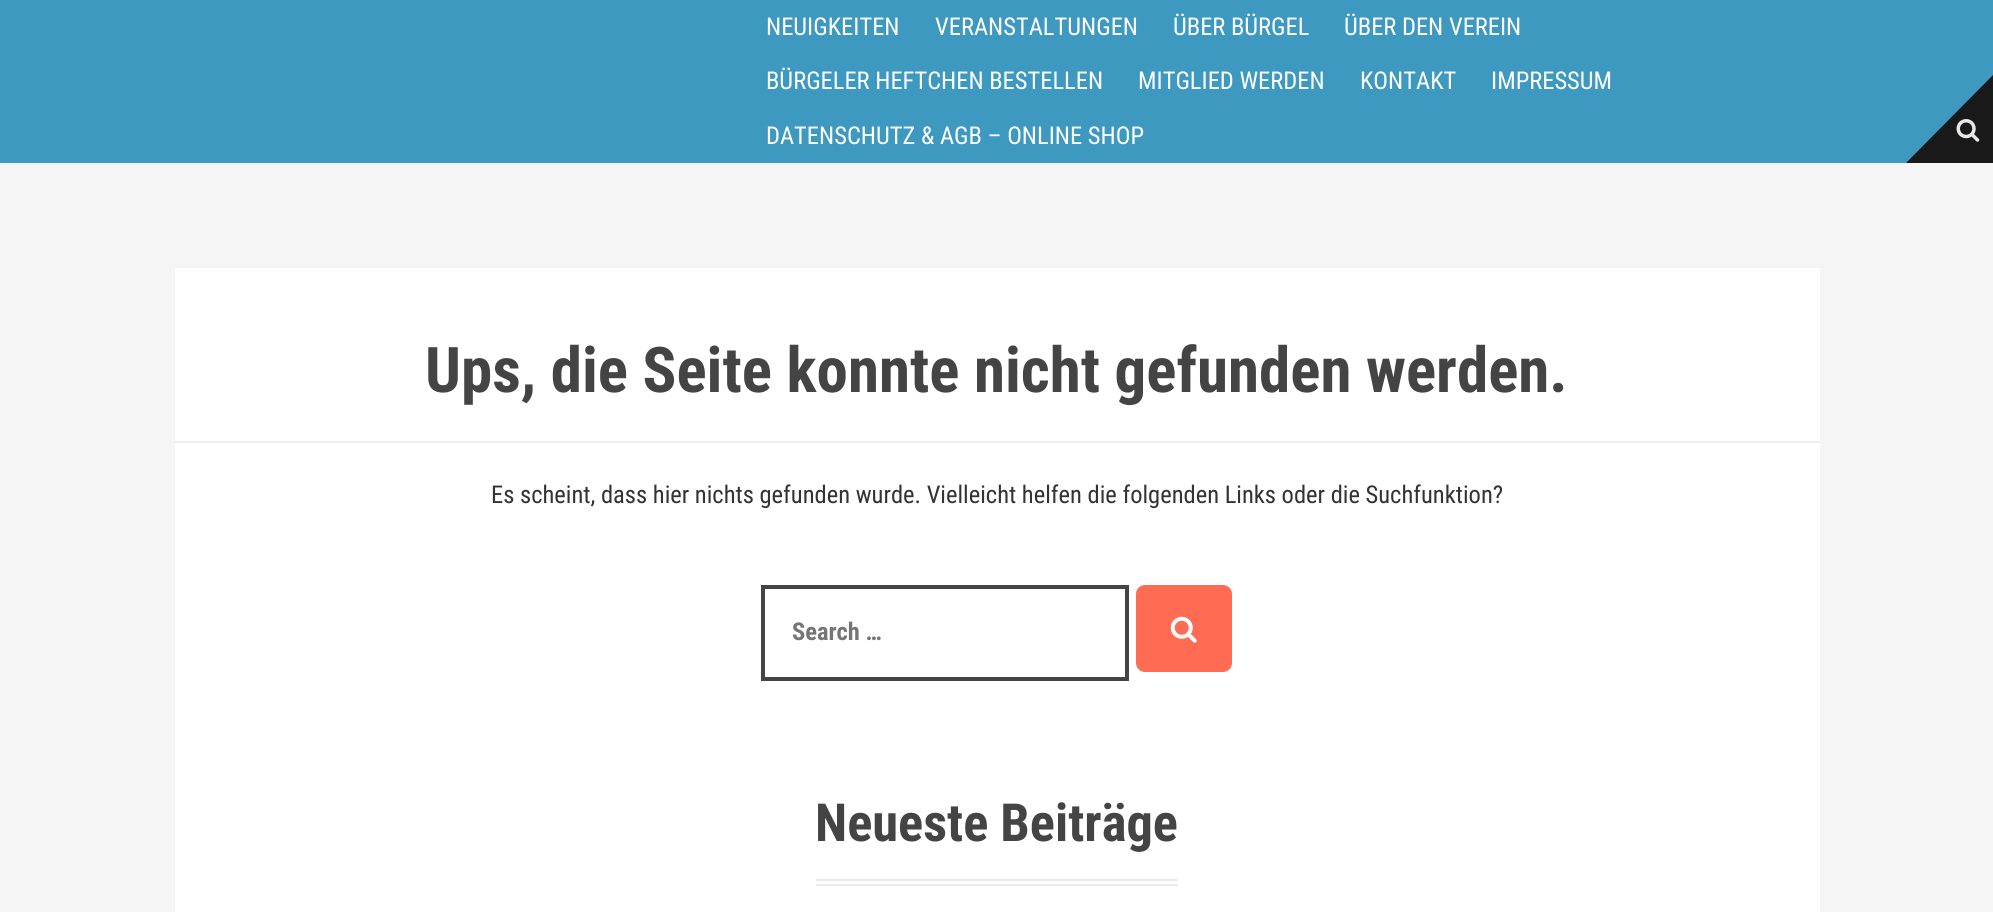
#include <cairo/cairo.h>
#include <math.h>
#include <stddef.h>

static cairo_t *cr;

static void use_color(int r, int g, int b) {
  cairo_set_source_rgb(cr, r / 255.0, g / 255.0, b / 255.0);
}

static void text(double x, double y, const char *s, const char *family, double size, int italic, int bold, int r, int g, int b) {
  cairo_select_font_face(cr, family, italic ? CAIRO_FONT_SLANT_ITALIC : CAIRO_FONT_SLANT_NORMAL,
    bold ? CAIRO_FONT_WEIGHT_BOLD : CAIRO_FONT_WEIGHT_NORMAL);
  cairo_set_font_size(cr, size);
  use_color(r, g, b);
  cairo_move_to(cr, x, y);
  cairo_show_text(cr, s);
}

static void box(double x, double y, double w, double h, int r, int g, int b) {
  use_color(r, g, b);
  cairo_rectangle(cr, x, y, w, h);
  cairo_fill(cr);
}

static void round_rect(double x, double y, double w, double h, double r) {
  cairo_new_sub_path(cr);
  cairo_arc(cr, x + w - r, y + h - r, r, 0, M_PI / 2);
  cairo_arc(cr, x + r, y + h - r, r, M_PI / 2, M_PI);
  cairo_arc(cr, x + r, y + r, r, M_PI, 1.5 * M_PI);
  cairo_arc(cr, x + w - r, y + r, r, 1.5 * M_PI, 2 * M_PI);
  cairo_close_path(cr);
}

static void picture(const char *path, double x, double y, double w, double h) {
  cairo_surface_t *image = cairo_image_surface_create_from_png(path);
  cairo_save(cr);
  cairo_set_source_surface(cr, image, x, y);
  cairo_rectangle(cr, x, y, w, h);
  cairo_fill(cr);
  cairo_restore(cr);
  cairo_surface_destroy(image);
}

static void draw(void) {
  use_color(245, 245, 245);
  cairo_paint(cr);
  box(0, 0, 1993, 163, 61, 153, 192);
  use_color(25, 25, 25);
  cairo_new_path(cr);
  cairo_move_to(cr, 1993, 75);
  cairo_line_to(cr, 1993, 163);
  cairo_line_to(cr, 1906, 163);
  cairo_close_path(cr);
  cairo_fill(cr);
  picture("img_01.png", 1956, 119, 24, 23);
  box(175, 268, 1645, 644, 255, 255, 255);
  box(175, 441, 1645, 2, 238, 238, 238);
  cairo_rectangle(cr, 763, 587, 364, 92);
  use_color(68, 68, 68);
  cairo_set_line_width(cr, 4);
  cairo_stroke(cr);
  use_color(255, 107, 83);
  round_rect(1136, 585, 96, 87, 9);
  cairo_fill(cr);
  picture("img_02.png", 1170, 616, 27, 27);
  box(816, 879, 362, 2, 235, 235, 235);
  box(816, 884, 362, 2, 235, 235, 235);
  text(766, 35, "NEUIGKEITEN", "Roboto Condensed", 24.5, 0, 0, 254, 254, 254);
  text(935, 35, "VERANSTALTUNGEN", "Roboto Condensed", 24.5, 0, 0, 254, 254, 254);
  text(1173, 35, "ÜBER BÜRGEL", "Roboto Condensed", 24.5, 0, 0, 254, 254, 254);
  text(1344, 35, "ÜBER DEN VEREIN", "Roboto Condensed", 24.5, 0, 0, 254, 254, 254);
  text(766, 89, "BÜRGELER HEFTCHEN BESTELLEN", "Roboto Condensed", 24.5, 0, 0, 254, 254, 254);
  text(1138, 89, "MITGLIED WERDEN", "Roboto Condensed", 24.5, 0, 0, 254, 254, 254);
  text(1360, 89, "KONTAKT", "Roboto Condensed", 24.5, 0, 0, 254, 254, 254);
  text(1491, 89, "IMPRESSUM", "Roboto Condensed", 24.5, 0, 0, 254, 254, 254);
  text(766, 144, "DATENSCHUTZ & AGB – ONLINE SHOP", "Roboto Condensed", 24.5, 0, 0, 254, 254, 254);
  text(425, 392, "Ups, die Seite konnte nicht gefunden werden.", "Roboto Condensed", 63, 0, 1, 68, 68, 68);
  text(491, 503, "Es scheint, dass hier nichts gefunden wurde. Vielleicht helfen die folgenden Links oder die Suchfunktion?", "Roboto Condensed", 24.5, 0, 0, 51, 51, 51);
  text(792, 640, "Search …", "Roboto Condensed", 24.5, 0, 1, 117, 117, 117);
  text(815, 841, "Neueste Beiträge", "Roboto Condensed", 52.5, 0, 1, 68, 68, 68);
}

int main(void) {
  cairo_surface_t *surface = cairo_image_surface_create(CAIRO_FORMAT_RGB24, 1993, 912);
  cr = cairo_create(surface);
  cairo_font_options_t *options = cairo_font_options_create();
  cairo_font_options_set_hint_metrics(options, CAIRO_HINT_METRICS_OFF);
  cairo_font_options_set_hint_style(options, CAIRO_HINT_STYLE_NONE);
  cairo_set_font_options(cr, options);
  cairo_set_miter_limit(cr, 4);
  draw();
  cairo_surface_write_to_png(surface, "out.png");
  cairo_font_options_destroy(options);
  cairo_destroy(cr);
  cairo_surface_destroy(surface);
  return 0;
}
